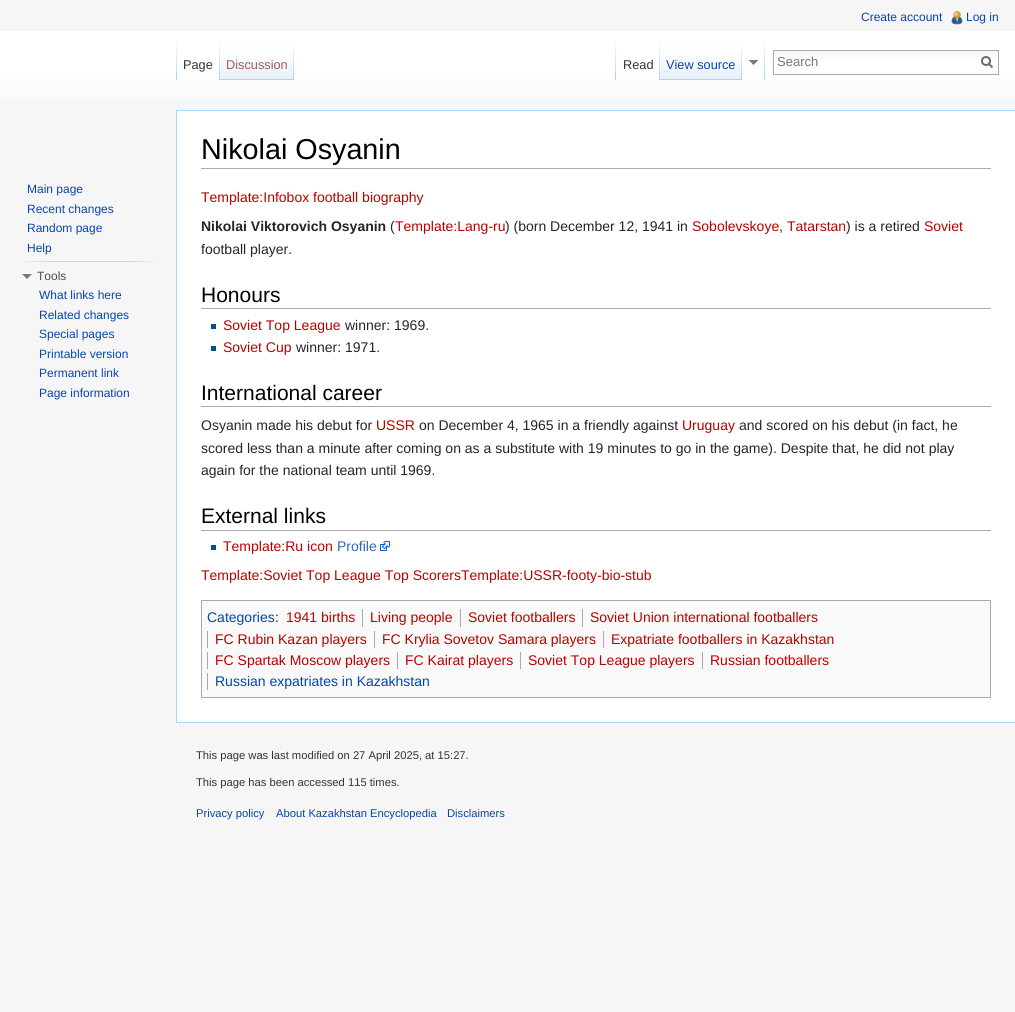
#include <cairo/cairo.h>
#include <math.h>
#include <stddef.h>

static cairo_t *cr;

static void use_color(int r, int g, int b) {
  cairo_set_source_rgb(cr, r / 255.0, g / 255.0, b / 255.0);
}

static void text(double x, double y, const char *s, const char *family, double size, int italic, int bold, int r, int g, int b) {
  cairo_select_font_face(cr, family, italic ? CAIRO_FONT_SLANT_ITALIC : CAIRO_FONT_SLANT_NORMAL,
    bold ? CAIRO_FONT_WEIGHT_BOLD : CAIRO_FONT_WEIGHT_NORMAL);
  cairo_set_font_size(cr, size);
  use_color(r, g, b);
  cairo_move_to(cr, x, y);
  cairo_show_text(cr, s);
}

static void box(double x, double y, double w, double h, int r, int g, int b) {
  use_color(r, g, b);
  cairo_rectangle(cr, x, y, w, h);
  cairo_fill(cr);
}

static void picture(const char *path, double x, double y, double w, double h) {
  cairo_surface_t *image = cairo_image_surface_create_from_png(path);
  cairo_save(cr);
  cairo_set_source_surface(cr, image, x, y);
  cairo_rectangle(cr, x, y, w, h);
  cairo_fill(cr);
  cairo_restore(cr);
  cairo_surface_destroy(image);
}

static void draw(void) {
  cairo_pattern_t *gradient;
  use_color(246, 246, 246);
  cairo_paint(cr);
  picture("img_01.png", 951, 11, 12, 14);
  gradient = cairo_pattern_create_linear(508, 31, 508, 111);
  cairo_pattern_add_color_stop_rgba(gradient, 0.5, 1, 1, 1, 1);
  cairo_pattern_add_color_stop_rgba(gradient, 1, 0.965, 0.965, 0.965, 1);
  cairo_set_source(cr, gradient);
  cairo_pattern_destroy(gradient);
  cairo_rectangle(cr, 0, 31, 1015, 69);
  cairo_fill(cr);
  picture("img_02.png", 176, 40, 1, 40);
  picture("img_03.png", 219, 40, 1, 40);
  picture("img_04.png", 220, 40, 74, 40);
  picture("img_05.png", 293, 40, 1, 39);
  picture("img_02.png", 615, 40, 1, 40);
  picture("img_03.png", 659, 40, 1, 40);
  picture("img_06.png", 660, 40, 82, 40);
  picture("img_05.png", 741, 40, 1, 39);
  use_color(121, 121, 121);
  cairo_new_path(cr);
  cairo_move_to(cr, 758.5, 60);
  cairo_line_to(cr, 753.5, 65);
  cairo_line_to(cr, 748.5, 60);
  cairo_close_path(cr);
  cairo_fill(cr);
  picture("img_03.png", 764, 40, 1, 40);
  picture("img_07.png", 774, 51, 224, 8);
  cairo_rectangle(cr, 773.5, 50.5, 225, 24);
  use_color(170, 170, 170);
  cairo_set_line_width(cr, 1);
  cairo_stroke(cr);
  cairo_new_path(cr);
  cairo_move_to(cr, 992.5, 67.5);
  cairo_line_to(cr, 988.5, 63.5);
  use_color(108, 108, 108);
  cairo_set_line_width(cr, 2);
  cairo_stroke(cr);
  cairo_arc(cr, 986, 61, 4, 0, 2 * M_PI);
  cairo_stroke(cr);
  picture("img_08.png", 22, 261, 135, 1);
  use_color(121, 121, 121);
  cairo_new_path(cr);
  cairo_move_to(cr, 32, 274);
  cairo_line_to(cr, 27, 279);
  cairo_line_to(cr, 22, 274);
  cairo_close_path(cr);
  cairo_fill(cr);
  box(177, 111, 838, 611, 255, 255, 255);
  box(176, 110, 839, 1, 167, 215, 249);
  box(176, 722, 839, 1, 167, 215, 249);
  box(176, 110, 1, 613, 167, 215, 249);
  box(201, 168, 790, 1, 170, 170, 170);
  box(201, 308, 790, 1, 170, 170, 170);
  box(211, 324, 5, 5, 0, 82, 140);
  box(211, 346, 5, 5, 0, 82, 140);
  box(201, 406, 790, 1, 170, 170, 170);
  box(201, 530, 790, 1, 170, 170, 170);
  box(211, 545, 5, 5, 0, 82, 140);
  picture("img_09.png", 380, 541, 10, 10);
  use_color(249, 249, 249);
  cairo_rectangle(cr, 201.5, 600.5, 789, 97);
  cairo_fill_preserve(cr);
  use_color(170, 170, 170);
  cairo_set_line_width(cr, 1);
  cairo_stroke(cr);
  box(362, 609, 1, 18, 170, 170, 170);
  box(460, 609, 1, 18, 170, 170, 170);
  box(582, 609, 1, 18, 170, 170, 170);
  box(207, 631, 1, 17, 170, 170, 170);
  box(374, 631, 1, 17, 170, 170, 170);
  box(603, 631, 1, 17, 170, 170, 170);
  box(207, 652, 1, 17, 170, 170, 170);
  box(397, 652, 1, 17, 170, 170, 170);
  box(520, 652, 1, 17, 170, 170, 170);
  box(702, 652, 1, 17, 170, 170, 170);
  box(207, 673, 1, 17, 170, 170, 170);
  text(861, 21, "Create account", "Liberation Sans", 12, 0, 0, 6, 69, 173);
  text(966, 21, "Log in", "Liberation Sans", 12, 0, 0, 6, 69, 173);
  text(183, 69, "Page", "Liberation Sans", 12.75, 0, 0, 51, 51, 51);
  text(226, 69, "Discussion", "Liberation Sans", 12.75, 0, 0, 165, 88, 88);
  text(623, 69, "Read", "Liberation Sans", 12.75, 0, 0, 51, 51, 51);
  text(666, 69, "View source", "Liberation Sans", 12.75, 0, 0, 6, 69, 173);
  text(777, 66, "Search", "Liberation Sans", 13, 0, 0, 117, 117, 117);
  text(27, 193, "Main page", "Liberation Sans", 12, 0, 0, 6, 69, 173);
  text(27, 213, "Recent changes", "Liberation Sans", 12, 0, 0, 6, 69, 173);
  text(27, 232, "Random page", "Liberation Sans", 12, 0, 0, 6, 69, 173);
  text(27, 252, "Help", "Liberation Sans", 12, 0, 0, 6, 69, 173);
  text(37, 280, "Tools", "Liberation Sans", 12, 0, 0, 77, 77, 77);
  text(39, 299, "What links here", "Liberation Sans", 12, 0, 0, 6, 69, 173);
  text(39, 319, "Related changes", "Liberation Sans", 12, 0, 0, 6, 69, 173);
  text(39, 338, "Special pages", "Liberation Sans", 12, 0, 0, 6, 69, 173);
  text(39, 358, "Printable version", "Liberation Sans", 12, 0, 0, 6, 69, 173);
  text(39, 377, "Permanent link", "Liberation Sans", 12, 0, 0, 6, 69, 173);
  text(39, 397, "Page information", "Liberation Sans", 12, 0, 0, 6, 69, 173);
  text(201, 159, "Nikolai Osyanin", "Liberation Sans", 28.75, 0, 0, 0, 0, 0);
  text(201, 202, "Template:Infobox football biography", "Liberation Sans", 14, 0, 0, 186, 0, 0);
  text(201, 231, "Nikolai Viktorovich Osyanin", "Liberation Sans", 14, 0, 1, 37, 37, 37);
  text(390, 231, "(", "Liberation Sans", 14, 0, 0, 37, 37, 37);
  text(395, 231, "Template:Lang-ru", "Liberation Sans", 14, 0, 0, 186, 0, 0);
  text(505, 231, ") (born December 12, 1941 in", "Liberation Sans", 14, 0, 0, 37, 37, 37);
  text(692, 231, "Sobolevskoye", "Liberation Sans", 14, 0, 0, 186, 0, 0);
  text(779, 231, ",", "Liberation Sans", 14, 0, 0, 37, 37, 37);
  text(787, 231, "Tatarstan", "Liberation Sans", 14, 0, 0, 186, 0, 0);
  text(846, 231, ") is a retired", "Liberation Sans", 14, 0, 0, 37, 37, 37);
  text(924, 231, "Soviet", "Liberation Sans", 14, 0, 0, 186, 0, 0);
  text(201, 254, "football player.", "Liberation Sans", 14, 0, 0, 37, 37, 37);
  text(201, 302, "Honours", "Liberation Sans", 21, 0, 0, 0, 0, 0);
  text(223, 330, "Soviet Top League", "Liberation Sans", 14, 0, 0, 186, 0, 0);
  text(345, 330, "winner: 1969.", "Liberation Sans", 14, 0, 0, 37, 37, 37);
  text(223, 352, "Soviet Cup", "Liberation Sans", 14, 0, 0, 186, 0, 0);
  text(296, 352, "winner: 1971.", "Liberation Sans", 14, 0, 0, 37, 37, 37);
  text(201, 400, "International career", "Liberation Sans", 21, 0, 0, 0, 0, 0);
  text(201, 430, "Osyanin made his debut for", "Liberation Sans", 14, 0, 0, 37, 37, 37);
  text(376, 430, "USSR", "Liberation Sans", 14, 0, 0, 186, 0, 0);
  text(419, 430, "on December 4, 1965 in a friendly against", "Liberation Sans", 14, 0, 0, 37, 37, 37);
  text(682, 430, "Uruguay", "Liberation Sans", 14, 0, 0, 186, 0, 0);
  text(739, 430, "and scored on his debut (in fact, he", "Liberation Sans", 14, 0, 0, 37, 37, 37);
  text(201, 453, "scored less than a minute after coming on as a substitute with 19 minutes to go in the game). Despite that, he did not play", "Liberation Sans", 14, 0, 0, 37, 37, 37);
  text(201, 475, "again for the national team until 1969.", "Liberation Sans", 14, 0, 0, 37, 37, 37);
  text(201, 523, "External links", "Liberation Sans", 21, 0, 0, 0, 0, 0);
  text(223, 551, "Template:Ru icon", "Liberation Sans", 14, 0, 0, 186, 0, 0);
  text(337, 551, "Profile", "Liberation Sans", 14, 0, 0, 51, 102, 187);
  text(201, 580, "Template:Soviet Top League Top ScorersTemplate:USSR-footy-bio-stub", "Liberation Sans", 14, 0, 0, 186, 0, 0);
  text(207, 622, "Categories", "Liberation Sans", 14, 0, 0, 6, 69, 173);
  text(286, 622, "1941 births", "Liberation Sans", 14, 0, 0, 186, 0, 0);
  text(370, 622, "Living people", "Liberation Sans", 14, 0, 0, 186, 0, 0);
  text(468, 622, "Soviet footballers", "Liberation Sans", 14, 0, 0, 186, 0, 0);
  text(590, 622, "Soviet Union international footballers", "Liberation Sans", 14, 0, 0, 186, 0, 0);
  text(215, 644, "FC Rubin Kazan players", "Liberation Sans", 14, 0, 0, 186, 0, 0);
  text(382, 644, "FC Krylia Sovetov Samara players", "Liberation Sans", 14, 0, 0, 186, 0, 0);
  text(611, 644, "Expatriate footballers in Kazakhstan", "Liberation Sans", 14, 0, 0, 186, 0, 0);
  text(215, 665, "FC Spartak Moscow players", "Liberation Sans", 14, 0, 0, 186, 0, 0);
  text(405, 665, "FC Kairat players", "Liberation Sans", 14, 0, 0, 186, 0, 0);
  text(528, 665, "Soviet Top League players", "Liberation Sans", 14, 0, 0, 186, 0, 0);
  text(710, 665, "Russian footballers", "Liberation Sans", 14, 0, 0, 186, 0, 0);
  text(215, 686, "Russian expatriates in Kazakhstan", "Liberation Sans", 14, 0, 0, 6, 69, 173);
  text(275, 622, ":", "Liberation Sans", 14, 0, 0, 37, 37, 37);
  text(196, 759, "This page was last modified on 27 April 2025, at 15:27.", "Liberation Sans", 11.2, 0, 0, 51, 51, 51);
  text(196, 786, "This page has been accessed 115 times.", "Liberation Sans", 11.2, 0, 0, 51, 51, 51);
  text(196, 817, "Privacy policy", "Liberation Sans", 11.2, 0, 0, 6, 69, 173);
  text(276, 817, "About Kazakhstan Encyclopedia", "Liberation Sans", 11.2, 0, 0, 6, 69, 173);
  text(447, 817, "Disclaimers", "Liberation Sans", 11.2, 0, 0, 6, 69, 173);
}

int main(void) {
  cairo_surface_t *surface = cairo_image_surface_create(CAIRO_FORMAT_RGB24, 1015, 1012);
  cr = cairo_create(surface);
  cairo_font_options_t *options = cairo_font_options_create();
  cairo_font_options_set_hint_metrics(options, CAIRO_HINT_METRICS_OFF);
  cairo_font_options_set_hint_style(options, CAIRO_HINT_STYLE_NONE);
  cairo_set_font_options(cr, options);
  cairo_set_miter_limit(cr, 4);
  draw();
  cairo_surface_write_to_png(surface, "out.png");
  cairo_font_options_destroy(options);
  cairo_destroy(cr);
  cairo_surface_destroy(surface);
  return 0;
}
